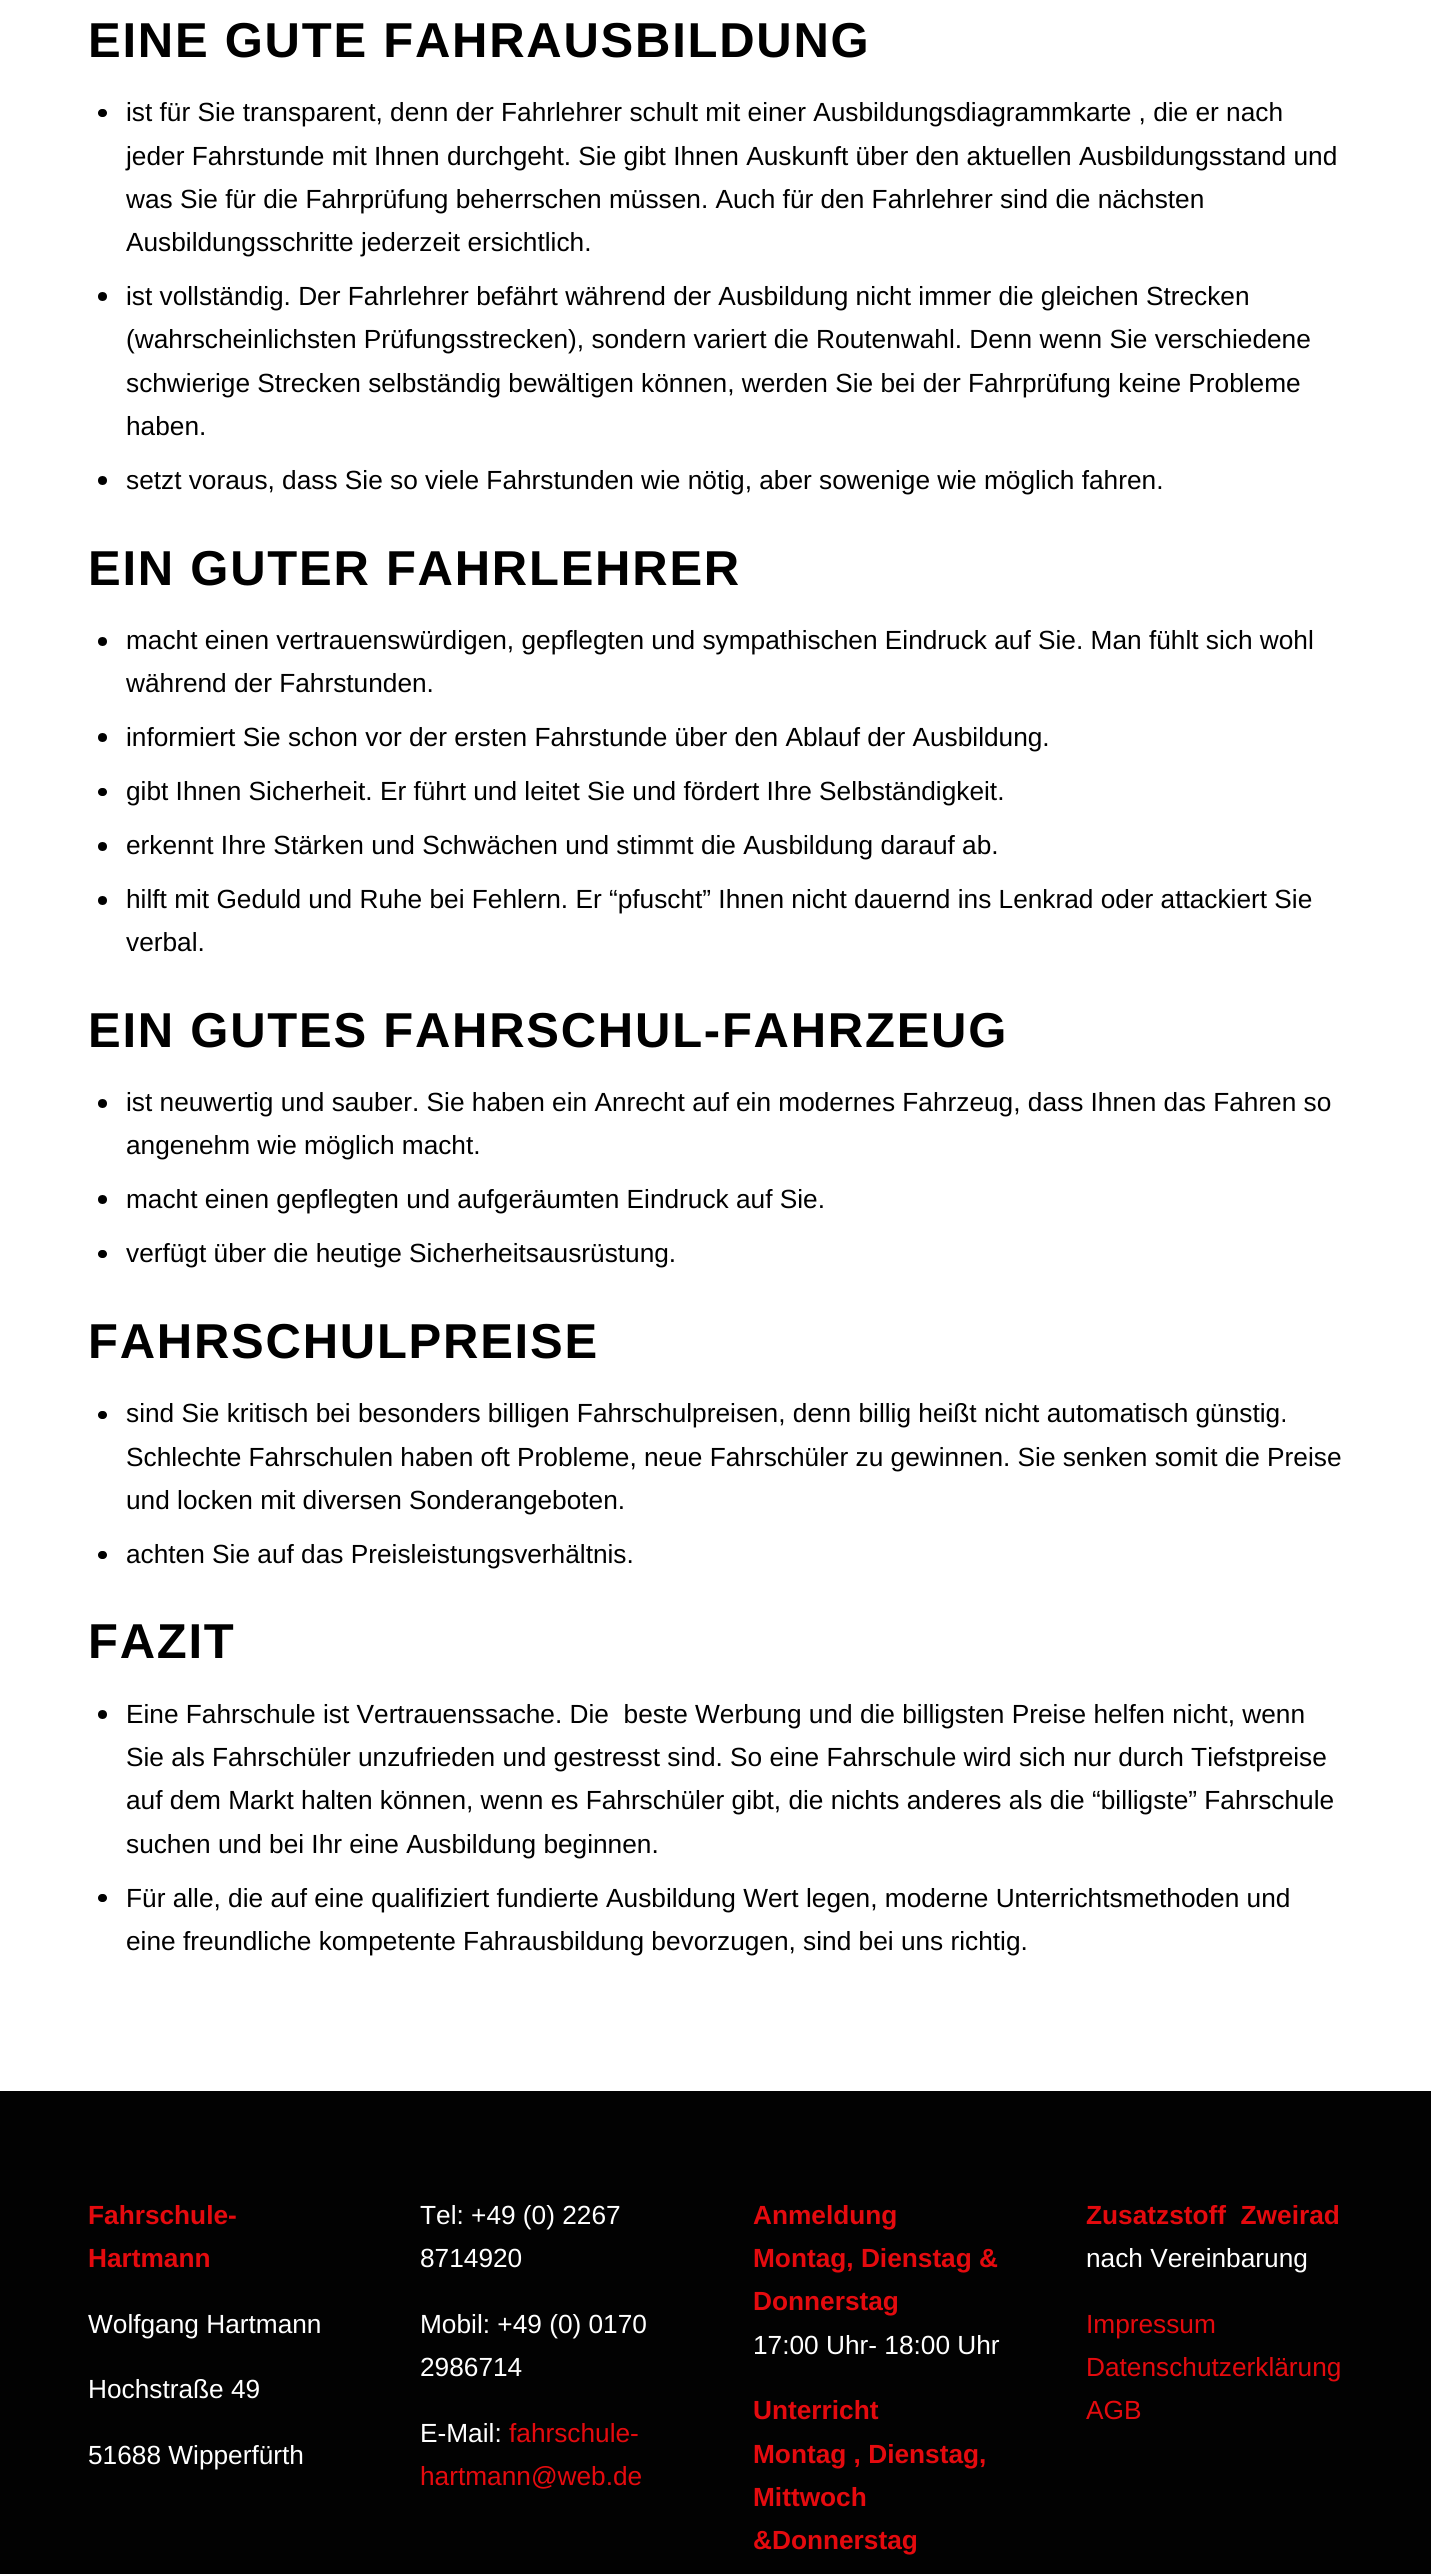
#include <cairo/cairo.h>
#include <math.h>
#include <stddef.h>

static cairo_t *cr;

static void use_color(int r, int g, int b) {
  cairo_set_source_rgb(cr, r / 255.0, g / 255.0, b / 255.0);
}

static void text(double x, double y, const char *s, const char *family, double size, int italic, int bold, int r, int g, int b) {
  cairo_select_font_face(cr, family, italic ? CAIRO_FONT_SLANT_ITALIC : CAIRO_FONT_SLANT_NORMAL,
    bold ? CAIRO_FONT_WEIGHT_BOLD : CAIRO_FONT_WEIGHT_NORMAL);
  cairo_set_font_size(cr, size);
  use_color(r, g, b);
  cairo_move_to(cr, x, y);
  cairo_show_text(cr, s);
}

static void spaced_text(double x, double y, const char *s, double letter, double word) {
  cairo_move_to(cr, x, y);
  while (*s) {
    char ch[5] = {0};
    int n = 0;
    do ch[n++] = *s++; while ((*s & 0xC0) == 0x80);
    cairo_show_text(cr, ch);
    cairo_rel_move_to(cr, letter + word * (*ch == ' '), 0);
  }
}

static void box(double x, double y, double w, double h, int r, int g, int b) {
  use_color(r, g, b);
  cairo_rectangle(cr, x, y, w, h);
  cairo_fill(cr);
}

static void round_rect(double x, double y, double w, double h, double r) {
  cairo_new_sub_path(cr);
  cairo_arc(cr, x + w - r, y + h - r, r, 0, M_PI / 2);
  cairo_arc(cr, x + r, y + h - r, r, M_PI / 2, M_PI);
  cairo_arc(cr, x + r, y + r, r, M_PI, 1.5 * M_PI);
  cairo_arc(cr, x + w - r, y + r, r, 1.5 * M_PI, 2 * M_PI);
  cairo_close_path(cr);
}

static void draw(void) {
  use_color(2, 2, 2);
  cairo_paint(cr);
  box(0, 0, 1431, 2091, 255, 255, 255);
  use_color(0, 0, 0);
  round_rect(98, 109, 9, 8, 4);
  cairo_fill(cr);
  cairo_arc(cr, 102.5, 296.5, 4.5, 0, 2 * M_PI);
  cairo_fill(cr);
  cairo_arc(cr, 102.5, 480.5, 4.5, 0, 2 * M_PI);
  cairo_fill(cr);
  cairo_arc(cr, 102.5, 641.5, 4.5, 0, 2 * M_PI);
  cairo_fill(cr);
  cairo_arc(cr, 102.5, 737.5, 4.5, 0, 2 * M_PI);
  cairo_fill(cr);
  round_rect(98, 788, 9, 8, 4);
  cairo_fill(cr);
  cairo_arc(cr, 102.5, 846.5, 4.5, 0, 2 * M_PI);
  cairo_fill(cr);
  cairo_arc(cr, 102.5, 900.5, 4.5, 0, 2 * M_PI);
  cairo_fill(cr);
  cairo_arc(cr, 102.5, 1103.5, 4.5, 0, 2 * M_PI);
  cairo_fill(cr);
  cairo_arc(cr, 102.5, 1199.5, 4.5, 0, 2 * M_PI);
  cairo_fill(cr);
  round_rect(98, 1250, 9, 8, 4);
  cairo_fill(cr);
  round_rect(98, 1411, 9, 8, 4);
  cairo_fill(cr);
  round_rect(98, 1551, 9, 8, 4);
  cairo_fill(cr);
  cairo_arc(cr, 102.5, 1714.5, 4.5, 0, 2 * M_PI);
  cairo_fill(cr);
  round_rect(98, 1894, 9, 8, 4);
  cairo_fill(cr);
  cairo_select_font_face(cr, "Liberation Sans", CAIRO_FONT_SLANT_NORMAL, CAIRO_FONT_WEIGHT_BOLD);
  cairo_set_font_size(cr, 49);
  spaced_text(88, 57, "EINE GUTE FAHRAUSBILDUNG", 1.75, 0);
  text(126, 121, "ist für Sie transparent, denn der Fahrlehrer schult mit einer Ausbildungsdiagrammkarte , die er nach", "Liberation Sans", 26.25, 0, 0, 0, 0, 0);
  text(126, 165, "jeder Fahrstunde mit Ihnen durchgeht. Sie gibt Ihnen Auskunft über den aktuellen Ausbildungsstand und", "Liberation Sans", 26.25, 0, 0, 0, 0, 0);
  text(126, 208, "was Sie für die Fahrprüfung beherrschen müssen. Auch für den Fahrlehrer sind die nächsten", "Liberation Sans", 26.25, 0, 0, 0, 0, 0);
  text(126, 251, "Ausbildungsschritte jederzeit ersichtlich.", "Liberation Sans", 26.25, 0, 0, 0, 0, 0);
  text(126, 305, "ist vollständig. Der Fahrlehrer befährt während der Ausbildung nicht immer die gleichen Strecken", "Liberation Sans", 26.25, 0, 0, 0, 0, 0);
  text(126, 348, "(wahrscheinlichsten Prüfungsstrecken), sondern variert die Routenwahl. Denn wenn Sie verschiedene", "Liberation Sans", 26.25, 0, 0, 0, 0, 0);
  text(126, 392, "schwierige Strecken selbständig bewältigen können, werden Sie bei der Fahrprüfung keine Probleme", "Liberation Sans", 26.25, 0, 0, 0, 0, 0);
  text(126, 435, "haben.", "Liberation Sans", 26.25, 0, 0, 0, 0, 0);
  text(126, 489, "setzt voraus, dass Sie so viele Fahrstunden wie nötig, aber sowenige wie möglich fahren.", "Liberation Sans", 26.25, 0, 0, 0, 0, 0);
  cairo_select_font_face(cr, "Liberation Sans", CAIRO_FONT_SLANT_NORMAL, CAIRO_FONT_WEIGHT_BOLD);
  cairo_set_font_size(cr, 49);
  spaced_text(88, 585, "EIN GUTER FAHRLEHRER", 1.75, 0);
  text(126, 649, "macht einen vertrauenswürdigen, gepflegten und sympathischen Eindruck auf Sie. Man fühlt sich wohl", "Liberation Sans", 26.25, 0, 0, 0, 0, 0);
  text(126, 692, "während der Fahrstunden.", "Liberation Sans", 26.25, 0, 0, 0, 0, 0);
  text(126, 746, "informiert Sie schon vor der ersten Fahrstunde über den Ablauf der Ausbildung.", "Liberation Sans", 26.25, 0, 0, 0, 0, 0);
  text(126, 800, "gibt Ihnen Sicherheit. Er führt und leitet Sie und fördert Ihre Selbständigkeit.", "Liberation Sans", 26.25, 0, 0, 0, 0, 0);
  text(126, 854, "erkennt Ihre Stärken und Schwächen und stimmt die Ausbildung darauf ab.", "Liberation Sans", 26.25, 0, 0, 0, 0, 0);
  text(126, 908, "hilft mit Geduld und Ruhe bei Fehlern. Er “pfuscht” Ihnen nicht dauernd ins Lenkrad oder attackiert Sie", "Liberation Sans", 26.25, 0, 0, 0, 0, 0);
  text(126, 951, "verbal.", "Liberation Sans", 26.25, 0, 0, 0, 0, 0);
  cairo_select_font_face(cr, "Liberation Sans", CAIRO_FONT_SLANT_NORMAL, CAIRO_FONT_WEIGHT_BOLD);
  cairo_set_font_size(cr, 49);
  spaced_text(88, 1047, "EIN GUTES FAHRSCHUL-FAHRZEUG", 1.75, 0);
  text(126, 1111, "ist neuwertig und sauber. Sie haben ein Anrecht auf ein modernes Fahrzeug, dass Ihnen das Fahren so", "Liberation Sans", 26.25, 0, 0, 0, 0, 0);
  text(126, 1154, "angenehm wie möglich macht.", "Liberation Sans", 26.25, 0, 0, 0, 0, 0);
  text(126, 1208, "macht einen gepflegten und aufgeräumten Eindruck auf Sie.", "Liberation Sans", 26.25, 0, 0, 0, 0, 0);
  text(126, 1262, "verfügt über die heutige Sicherheitsausrüstung.", "Liberation Sans", 26.25, 0, 0, 0, 0, 0);
  cairo_select_font_face(cr, "Liberation Sans", CAIRO_FONT_SLANT_NORMAL, CAIRO_FONT_WEIGHT_BOLD);
  cairo_set_font_size(cr, 49);
  spaced_text(88, 1358, "FAHRSCHULPREISE", 1.75, 0);
  text(126, 1422, "sind Sie kritisch bei besonders billigen Fahrschulpreisen, denn billig heißt nicht automatisch günstig.", "Liberation Sans", 26.25, 0, 0, 0, 0, 0);
  text(126, 1466, "Schlechte Fahrschulen haben oft Probleme, neue Fahrschüler zu gewinnen. Sie senken somit die Preise", "Liberation Sans", 26.25, 0, 0, 0, 0, 0);
  text(126, 1509, "und locken mit diversen Sonderangeboten.", "Liberation Sans", 26.25, 0, 0, 0, 0, 0);
  text(126, 1563, "achten Sie auf das Preisleistungsverhältnis.", "Liberation Sans", 26.25, 0, 0, 0, 0, 0);
  cairo_select_font_face(cr, "Liberation Sans", CAIRO_FONT_SLANT_NORMAL, CAIRO_FONT_WEIGHT_BOLD);
  cairo_set_font_size(cr, 49);
  spaced_text(88, 1658, "FAZIT", 1.75, 0);
  text(126, 1723, "Eine Fahrschule ist Vertrauenssache. Die  beste Werbung und die billigsten Preise helfen nicht, wenn", "Liberation Sans", 26.25, 0, 0, 0, 0, 0);
  text(126, 1766, "Sie als Fahrschüler unzufrieden und gestresst sind. So eine Fahrschule wird sich nur durch Tiefstpreise", "Liberation Sans", 26.25, 0, 0, 0, 0, 0);
  text(126, 1809, "auf dem Markt halten können, wenn es Fahrschüler gibt, die nichts anderes als die “billigste” Fahrschule", "Liberation Sans", 26.25, 0, 0, 0, 0, 0);
  text(126, 1853, "suchen und bei Ihr eine Ausbildung beginnen.", "Liberation Sans", 26.25, 0, 0, 0, 0, 0);
  text(126, 1907, "Für alle, die auf eine qualifiziert fundierte Ausbildung Wert legen, moderne Unterrichtsmethoden und", "Liberation Sans", 26.25, 0, 0, 0, 0, 0);
  text(126, 1950, "eine freundliche kompetente Fahrausbildung bevorzugen, sind bei uns richtig.", "Liberation Sans", 26.25, 0, 0, 0, 0, 0);
  text(88, 2224, "Fahrschule-", "Liberation Sans", 26.25, 0, 1, 229, 10, 14);
  text(88, 2267, "Hartmann", "Liberation Sans", 26.25, 0, 1, 229, 10, 14);
  text(88, 2333, "Wolfgang Hartmann", "Liberation Sans", 26.25, 0, 0, 255, 255, 255);
  text(88, 2398, "Hochstraße 49", "Liberation Sans", 26.25, 0, 0, 255, 255, 255);
  text(88, 2464, "51688 Wipperfürth", "Liberation Sans", 26.25, 0, 0, 255, 255, 255);
  text(420, 2224, "Tel: +49 (0) 2267", "Liberation Sans", 26.25, 0, 0, 255, 255, 255);
  text(420, 2267, "8714920", "Liberation Sans", 26.25, 0, 0, 255, 255, 255);
  text(420, 2333, "Mobil: +49 (0) 0170", "Liberation Sans", 26.25, 0, 0, 255, 255, 255);
  text(420, 2376, "2986714", "Liberation Sans", 26.25, 0, 0, 255, 255, 255);
  text(420, 2442, "E-Mail:", "Liberation Sans", 26.25, 0, 0, 255, 255, 255);
  text(509, 2442, "fahrschule-", "Liberation Sans", 26.25, 0, 0, 229, 10, 14);
  text(420, 2485, "hartmann@web.de", "Liberation Sans", 26.25, 0, 0, 229, 10, 14);
  text(753, 2224, "Anmeldung", "Liberation Sans", 26.25, 0, 1, 229, 10, 14);
  text(753, 2267, "Montag, Dienstag &", "Liberation Sans", 26.25, 0, 1, 229, 10, 14);
  text(753, 2310, "Donnerstag", "Liberation Sans", 26.25, 0, 1, 229, 10, 14);
  text(753, 2354, "17:00 Uhr- 18:00 Uhr", "Liberation Sans", 26.25, 0, 0, 255, 255, 255);
  text(753, 2419, "Unterricht", "Liberation Sans", 26.25, 0, 1, 229, 10, 14);
  text(753, 2463, "Montag , Dienstag,", "Liberation Sans", 26.25, 0, 1, 229, 10, 14);
  text(753, 2506, "Mittwoch", "Liberation Sans", 26.25, 0, 1, 229, 10, 14);
  text(753, 2549, "&Donnerstag", "Liberation Sans", 26.25, 0, 1, 229, 10, 14);
  text(1086, 2224, "Zusatzstoff  Zweirad", "Liberation Sans", 26.25, 0, 1, 229, 10, 14);
  text(1086, 2267, "nach Vereinbarung", "Liberation Sans", 26.25, 0, 0, 255, 255, 255);
  text(1086, 2333, "Impressum", "Liberation Sans", 26.25, 0, 0, 229, 10, 14);
  text(1086, 2376, "Datenschutzerklärung", "Liberation Sans", 26.25, 0, 0, 229, 10, 14);
  text(1086, 2419, "AGB", "Liberation Sans", 26.25, 0, 0, 229, 10, 14);
}

int main(void) {
  cairo_surface_t *surface = cairo_image_surface_create(CAIRO_FORMAT_RGB24, 1431, 2574);
  cr = cairo_create(surface);
  cairo_font_options_t *options = cairo_font_options_create();
  cairo_font_options_set_hint_metrics(options, CAIRO_HINT_METRICS_OFF);
  cairo_font_options_set_hint_style(options, CAIRO_HINT_STYLE_NONE);
  cairo_set_font_options(cr, options);
  cairo_set_miter_limit(cr, 4);
  draw();
  cairo_surface_write_to_png(surface, "out.png");
  cairo_font_options_destroy(options);
  cairo_destroy(cr);
  cairo_surface_destroy(surface);
  return 0;
}
